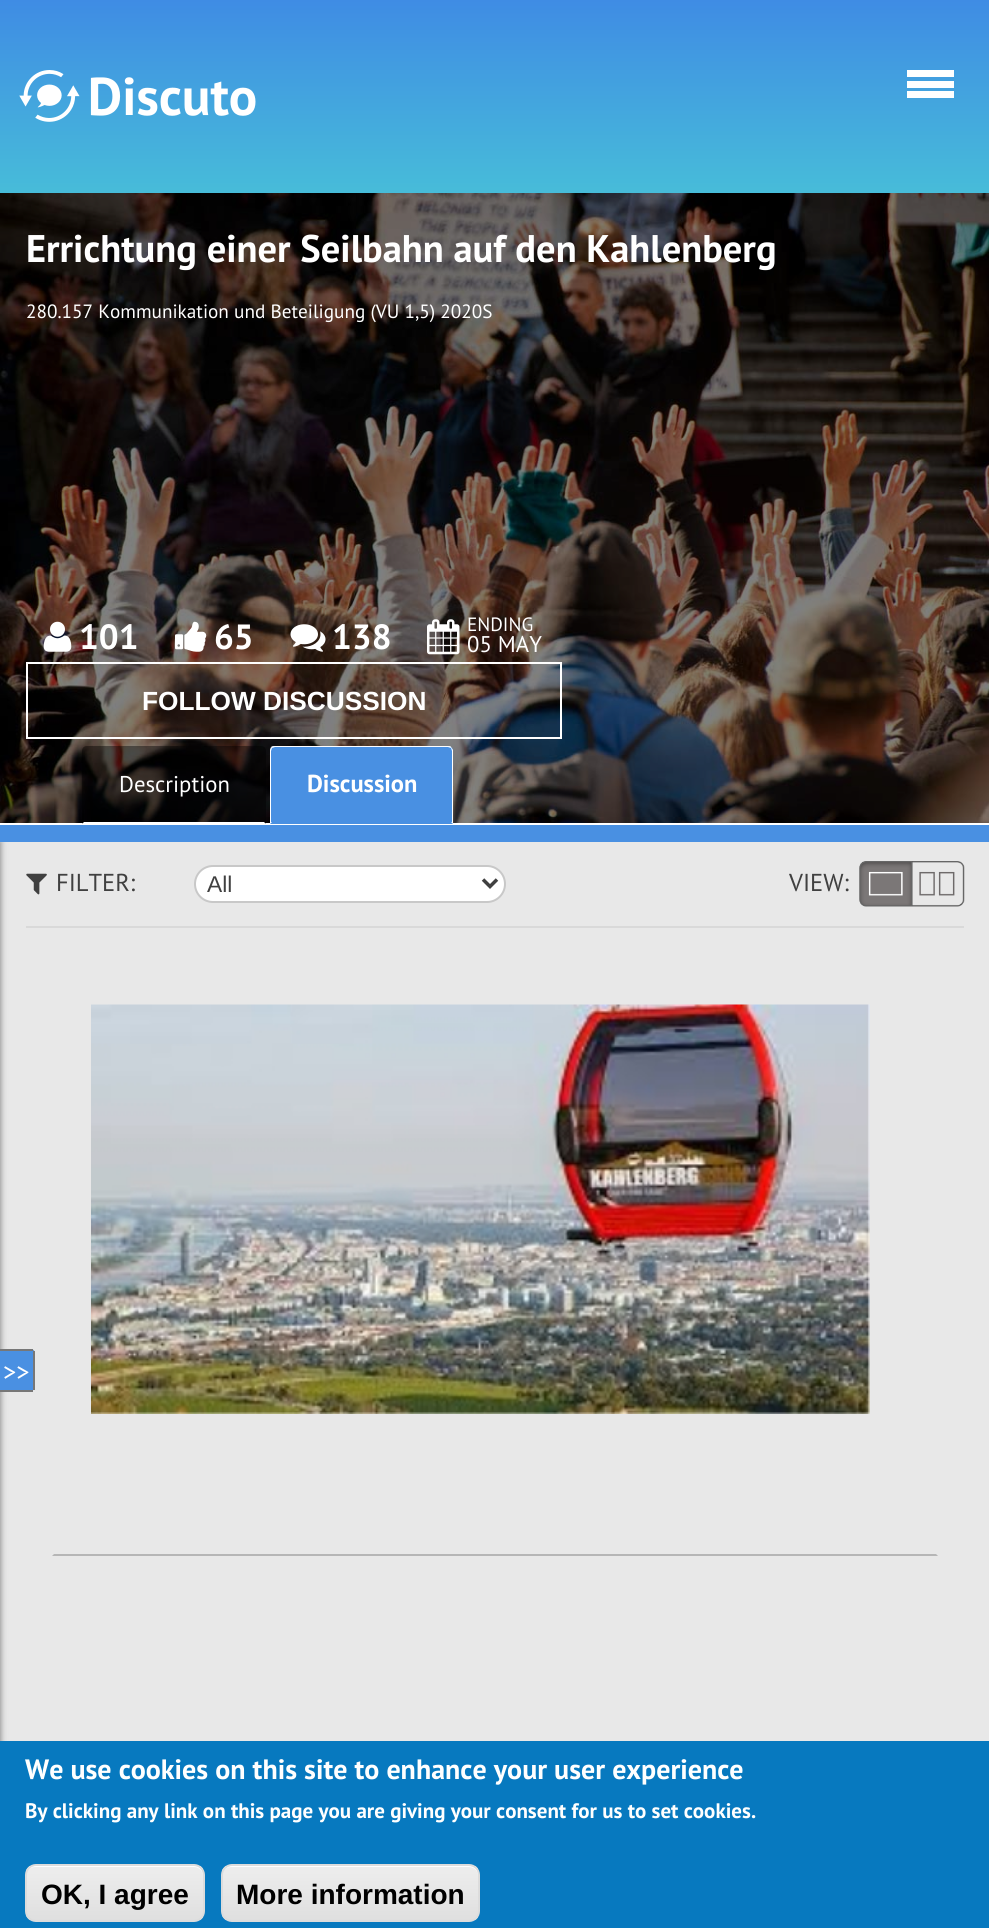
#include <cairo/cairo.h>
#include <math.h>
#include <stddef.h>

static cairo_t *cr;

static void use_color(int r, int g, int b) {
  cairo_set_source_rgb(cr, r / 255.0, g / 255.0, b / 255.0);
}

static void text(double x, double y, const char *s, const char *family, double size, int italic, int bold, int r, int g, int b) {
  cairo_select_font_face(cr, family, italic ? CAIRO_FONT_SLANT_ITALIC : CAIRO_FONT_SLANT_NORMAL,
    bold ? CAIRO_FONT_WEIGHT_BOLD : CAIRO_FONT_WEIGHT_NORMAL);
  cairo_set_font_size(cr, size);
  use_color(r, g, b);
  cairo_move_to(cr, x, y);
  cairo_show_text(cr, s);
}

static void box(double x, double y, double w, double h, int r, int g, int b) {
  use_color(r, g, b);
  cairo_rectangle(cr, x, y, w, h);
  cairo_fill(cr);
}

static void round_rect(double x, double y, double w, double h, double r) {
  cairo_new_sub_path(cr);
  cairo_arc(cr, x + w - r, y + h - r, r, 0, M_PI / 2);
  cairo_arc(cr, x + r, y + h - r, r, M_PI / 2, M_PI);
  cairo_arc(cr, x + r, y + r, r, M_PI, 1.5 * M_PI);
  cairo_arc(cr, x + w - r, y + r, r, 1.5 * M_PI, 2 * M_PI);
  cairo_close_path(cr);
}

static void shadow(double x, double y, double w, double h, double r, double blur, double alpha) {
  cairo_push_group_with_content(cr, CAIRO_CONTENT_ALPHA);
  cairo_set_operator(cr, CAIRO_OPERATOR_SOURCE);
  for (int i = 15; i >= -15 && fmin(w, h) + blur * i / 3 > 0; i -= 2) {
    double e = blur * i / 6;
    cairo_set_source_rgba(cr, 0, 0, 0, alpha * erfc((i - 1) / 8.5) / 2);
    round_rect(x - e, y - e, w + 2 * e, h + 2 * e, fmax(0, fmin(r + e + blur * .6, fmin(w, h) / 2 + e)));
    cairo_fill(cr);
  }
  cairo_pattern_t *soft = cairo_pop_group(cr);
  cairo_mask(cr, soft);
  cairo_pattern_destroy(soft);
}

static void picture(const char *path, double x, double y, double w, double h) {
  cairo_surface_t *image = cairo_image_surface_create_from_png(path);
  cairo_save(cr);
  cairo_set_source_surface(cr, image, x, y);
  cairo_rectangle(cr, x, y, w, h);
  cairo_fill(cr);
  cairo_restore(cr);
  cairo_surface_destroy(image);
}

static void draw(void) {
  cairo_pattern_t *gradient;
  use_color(255, 255, 255);
  cairo_paint(cr);
  gradient = cairo_pattern_create_linear(495, 0, 495, 193);
  cairo_pattern_add_color_stop_rgba(gradient, 0, 0.247, 0.549, 0.894, 1);
  cairo_pattern_add_color_stop_rgba(gradient, 1, 0.278, 0.737, 0.851, 1);
  cairo_set_source(cr, gradient);
  cairo_pattern_destroy(gradient);
  cairo_rectangle(cr, 0, 0, 989, 193);
  cairo_fill(cr);
  picture("img_01.png", 19, 70, 237, 52);
  box(907, 70, 47, 7, 255, 255, 255);
  box(907, 81, 47, 7, 255, 255, 255);
  box(907, 91, 47, 7, 255, 255, 255);
  picture("img_02.png", 0, 193, 989, 630);
  picture("img_03.png", 43, 621, 29, 31);
  picture("img_04.png", 175, 621, 32, 31);
  picture("img_05.png", 290, 624, 36, 28);
  picture("img_06.png", 427, 619, 33, 36);
  cairo_rectangle(cr, 27, 663, 534, 75);
  cairo_stroke(cr);
  box(0, 825, 989, 17, 73, 144, 226);
  cairo_set_source_rgba(cr, 0, 0, 0, 0.42);
  cairo_new_path(cr);
  cairo_move_to(cr, 87, 746);
  cairo_line_to(cr, 261, 746);
  cairo_curve_to(cr, 264, 746, 266, 748, 266, 751);
  cairo_line_to(cr, 266, 824);
  cairo_line_to(cr, 82, 824);
  cairo_line_to(cr, 82, 751);
  cairo_curve_to(cr, 82, 748, 84, 746, 87, 746);
  cairo_close_path(cr);
  cairo_fill(cr);
  use_color(255, 255, 255);
  cairo_new_path(cr);
  cairo_move_to(cr, 266, 824);
  cairo_line_to(cr, 82, 824);
  cairo_line_to(cr, 84, 822);
  cairo_line_to(cr, 264, 822);
  cairo_close_path(cr);
  cairo_fill(cr);
  use_color(73, 144, 226);
  cairo_new_path(cr);
  cairo_move_to(cr, 275, 746);
  cairo_line_to(cr, 448, 746);
  cairo_curve_to(cr, 451, 746, 453, 748, 453, 751);
  cairo_line_to(cr, 453, 824);
  cairo_line_to(cr, 270, 824);
  cairo_line_to(cr, 270, 751);
  cairo_curve_to(cr, 270, 748, 272, 746, 275, 746);
  cairo_close_path(cr);
  cairo_fill(cr);
  use_color(255, 255, 255);
  cairo_new_path(cr);
  cairo_move_to(cr, 275, 746);
  cairo_curve_to(cr, 274, 746, 272, 746, 271, 747);
  cairo_line_to(cr, 272, 748);
  cairo_line_to(cr, 275, 747);
  cairo_line_to(cr, 448, 747);
  cairo_line_to(cr, 451, 748);
  cairo_line_to(cr, 451, 747);
  cairo_curve_to(cr, 451, 746, 449, 746, 448, 746);
  cairo_close_path(cr);
  cairo_fill(cr);
  cairo_new_path(cr);
  cairo_move_to(cr, 453, 824);
  cairo_line_to(cr, 453, 750);
  cairo_line_to(cr, 451, 747);
  cairo_line_to(cr, 451, 748);
  cairo_line_to(cr, 452, 751);
  cairo_line_to(cr, 452, 822);
  cairo_line_to(cr, 451, 822);
  cairo_close_path(cr);
  cairo_fill(cr);
  cairo_new_path(cr);
  cairo_move_to(cr, 271, 747);
  cairo_line_to(cr, 270, 750);
  cairo_line_to(cr, 270, 824);
  cairo_line_to(cr, 272, 822);
  cairo_line_to(cr, 271, 822);
  cairo_line_to(cr, 271, 751);
  cairo_line_to(cr, 272, 748);
  cairo_close_path(cr);
  cairo_fill(cr);
  box(0, 842, 989, 899, 232, 232, 232);
  picture("img_07.png", 26, 873, 21, 22);
  use_color(255, 255, 255);
  round_rect(195, 866, 310, 36, 18);
  cairo_fill_preserve(cr);
  use_color(200, 200, 200);
  cairo_stroke(cr);
  cairo_new_path(cr);
  cairo_move_to(cr, 483, 879.5);
  cairo_line_to(cr, 490, 886.5);
  cairo_line_to(cr, 497, 879.5);
  use_color(64, 64, 64);
  cairo_set_line_width(cr, 3.5);
  cairo_stroke(cr);
  picture("img_08.png", 859, 861, 106, 46);
  box(26, 926, 938, 2, 217, 217, 217);
  use_color(182, 182, 182);
  cairo_new_path(cr);
  cairo_move_to(cr, 938, 1556);
  cairo_line_to(cr, 52, 1556);
  cairo_line_to(cr, 54, 1554);
  cairo_line_to(cr, 936, 1554);
  cairo_close_path(cr);
  cairo_fill(cr);
  picture("img_09.png", 91, 1004, 779, 410);
  cairo_save(cr);
  cairo_rectangle(cr, 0, 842, 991, 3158);
  cairo_clip(cr);
  use_color(0, 0, 0);
  shadow(-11, 842, 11, 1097, 0, 3.5, 0.5);
  cairo_restore(cr);
  use_color(74, 144, 226);
  cairo_new_path(cr);
  cairo_move_to(cr, 0, 1349);
  cairo_line_to(cr, 31, 1349);
  cairo_curve_to(cr, 33, 1349, 35, 1351, 35, 1353);
  cairo_line_to(cr, 35, 1387);
  cairo_curve_to(cr, 35, 1389, 33, 1391, 31, 1391);
  cairo_line_to(cr, 0, 1391);
  cairo_close_path(cr);
  cairo_fill(cr);
  box(0, 1349, 33, 2, 119, 119, 119);
  box(33, 1351, 2, 39, 119, 119, 119);
  box(0, 1390, 33, 2, 119, 119, 119);
  box(0, 1741, 989, 187, 7, 121, 191);
  cairo_save(cr);
  round_rect(25, 1864, 180, 58, 11);
  cairo_clip(cr);
  gradient = cairo_pattern_create_linear(115, 1866, 115, 1920);
  cairo_pattern_add_color_stop_rgba(gradient, 0.05, 0.929, 0.929, 0.929, 1);
  cairo_pattern_add_color_stop_rgba(gradient, 1, 0.875, 0.875, 0.875, 1);
  cairo_set_source(cr, gradient);
  cairo_pattern_destroy(gradient);
  cairo_rectangle(cr, 26, 1866, 177, 54);
  cairo_fill(cr);
  cairo_restore(cr);
  use_color(255, 255, 255);
  cairo_new_path(cr);
  cairo_move_to(cr, 35, 1867);
  cairo_line_to(cr, 194, 1867);
  cairo_curve_to(cr, 199, 1867, 203, 1871, 203, 1876);
  cairo_line_to(cr, 203, 1875);
  cairo_curve_to(cr, 203, 1870, 199, 1866, 194, 1866);
  cairo_line_to(cr, 35, 1866);
  cairo_curve_to(cr, 30, 1866, 26, 1870, 26, 1875);
  cairo_line_to(cr, 26, 1876);
  cairo_curve_to(cr, 26, 1871, 30, 1867, 35, 1867);
  cairo_close_path(cr);
  cairo_fill(cr);
  round_rect(26, 1865, 178, 56, 10);
  use_color(220, 220, 220);
  cairo_set_line_width(cr, 2);
  cairo_stroke(cr);
  cairo_save(cr);
  round_rect(221, 1864, 259, 58, 11);
  cairo_clip(cr);
  gradient = cairo_pattern_create_linear(350, 1866, 350, 1920);
  cairo_pattern_add_color_stop_rgba(gradient, 0.05, 0.929, 0.929, 0.929, 1);
  cairo_pattern_add_color_stop_rgba(gradient, 1, 0.875, 0.875, 0.875, 1);
  cairo_set_source(cr, gradient);
  cairo_pattern_destroy(gradient);
  cairo_rectangle(cr, 222, 1866, 256, 54);
  cairo_fill(cr);
  cairo_restore(cr);
  use_color(255, 255, 255);
  cairo_new_path(cr);
  cairo_move_to(cr, 231, 1867);
  cairo_line_to(cr, 469, 1867);
  cairo_curve_to(cr, 474, 1867, 478, 1871, 478, 1876);
  cairo_line_to(cr, 478, 1875);
  cairo_curve_to(cr, 478, 1870, 474, 1866, 469, 1866);
  cairo_line_to(cr, 231, 1866);
  cairo_curve_to(cr, 226, 1866, 222, 1870, 222, 1875);
  cairo_line_to(cr, 222, 1876);
  cairo_curve_to(cr, 222, 1871, 226, 1867, 231, 1867);
  cairo_close_path(cr);
  cairo_fill(cr);
  round_rect(222, 1865, 257, 56, 10);
  use_color(220, 220, 220);
  cairo_stroke(cr);
  text(26, 262, "Errichtung einer Seilbahn auf den Kahlenberg", "PT Sans", 38.5, 0, 1, 255, 255, 255);
  text(26, 318, "280.157 Kommunikation und Beteiligung (VU 1,5) 2020S", "PT Sans", 19.25, 0, 0, 255, 255, 255);
  text(79, 649, "101", "PT Sans", 35, 0, 1, 255, 255, 255);
  text(214, 649, "65", "PT Sans", 35, 0, 1, 255, 255, 255);
  text(332, 649, "138", "PT Sans", 35, 0, 1, 255, 255, 255);
  text(467, 631, "ENDING", "PT Sans", 19.25, 0, 0, 255, 255, 255);
  text(467, 652, "05 MAY", "PT Sans", 22.75, 0, 0, 255, 255, 255);
  text(142, 710, "FOLLOW DISCUSSION", "Liberation Sans", 26.25, 0, 1, 255, 255, 255);
  text(119, 792, "Description", "PT Sans", 22.75, 0, 0, 255, 255, 255);
  text(307, 792, "Discussion", "PT Sans", 24.5, 0, 1, 255, 255, 255);
  text(56, 891, "FILTER:", "PT Sans", 24.5, 0, 0, 64, 64, 64);
  text(207, 892, "All", "Liberation Sans", 22.75, 0, 0, 64, 64, 64);
  text(789, 891, "VIEW:", "PT Sans", 24.5, 0, 0, 64, 64, 64);
  text(3, 1381, ">>", "PT Sans", 26.25, 0, 0, 255, 255, 255);
  text(25, 1779, "We use cookies on this site to enhance your user experience", "PT Sans", 28, 0, 1, 255, 255, 255);
  text(25, 1818, "By clicking any link on this page you are giving your consent for us to set cookies.", "PT Sans", 21, 0, 1, 255, 255, 255);
  text(41, 1904, "OK, I agree", "Liberation Sans", 28, 0, 1, 0, 0, 0);
  text(236, 1904, "More information", "Liberation Sans", 28, 0, 1, 0, 0, 0);
}

int main(void) {
  cairo_surface_t *surface = cairo_image_surface_create(CAIRO_FORMAT_RGB24, 989, 1928);
  cr = cairo_create(surface);
  cairo_font_options_t *options = cairo_font_options_create();
  cairo_font_options_set_hint_metrics(options, CAIRO_HINT_METRICS_OFF);
  cairo_font_options_set_hint_style(options, CAIRO_HINT_STYLE_NONE);
  cairo_set_font_options(cr, options);
  cairo_set_miter_limit(cr, 4);
  draw();
  cairo_surface_write_to_png(surface, "out.png");
  cairo_font_options_destroy(options);
  cairo_destroy(cr);
  cairo_surface_destroy(surface);
  return 0;
}
